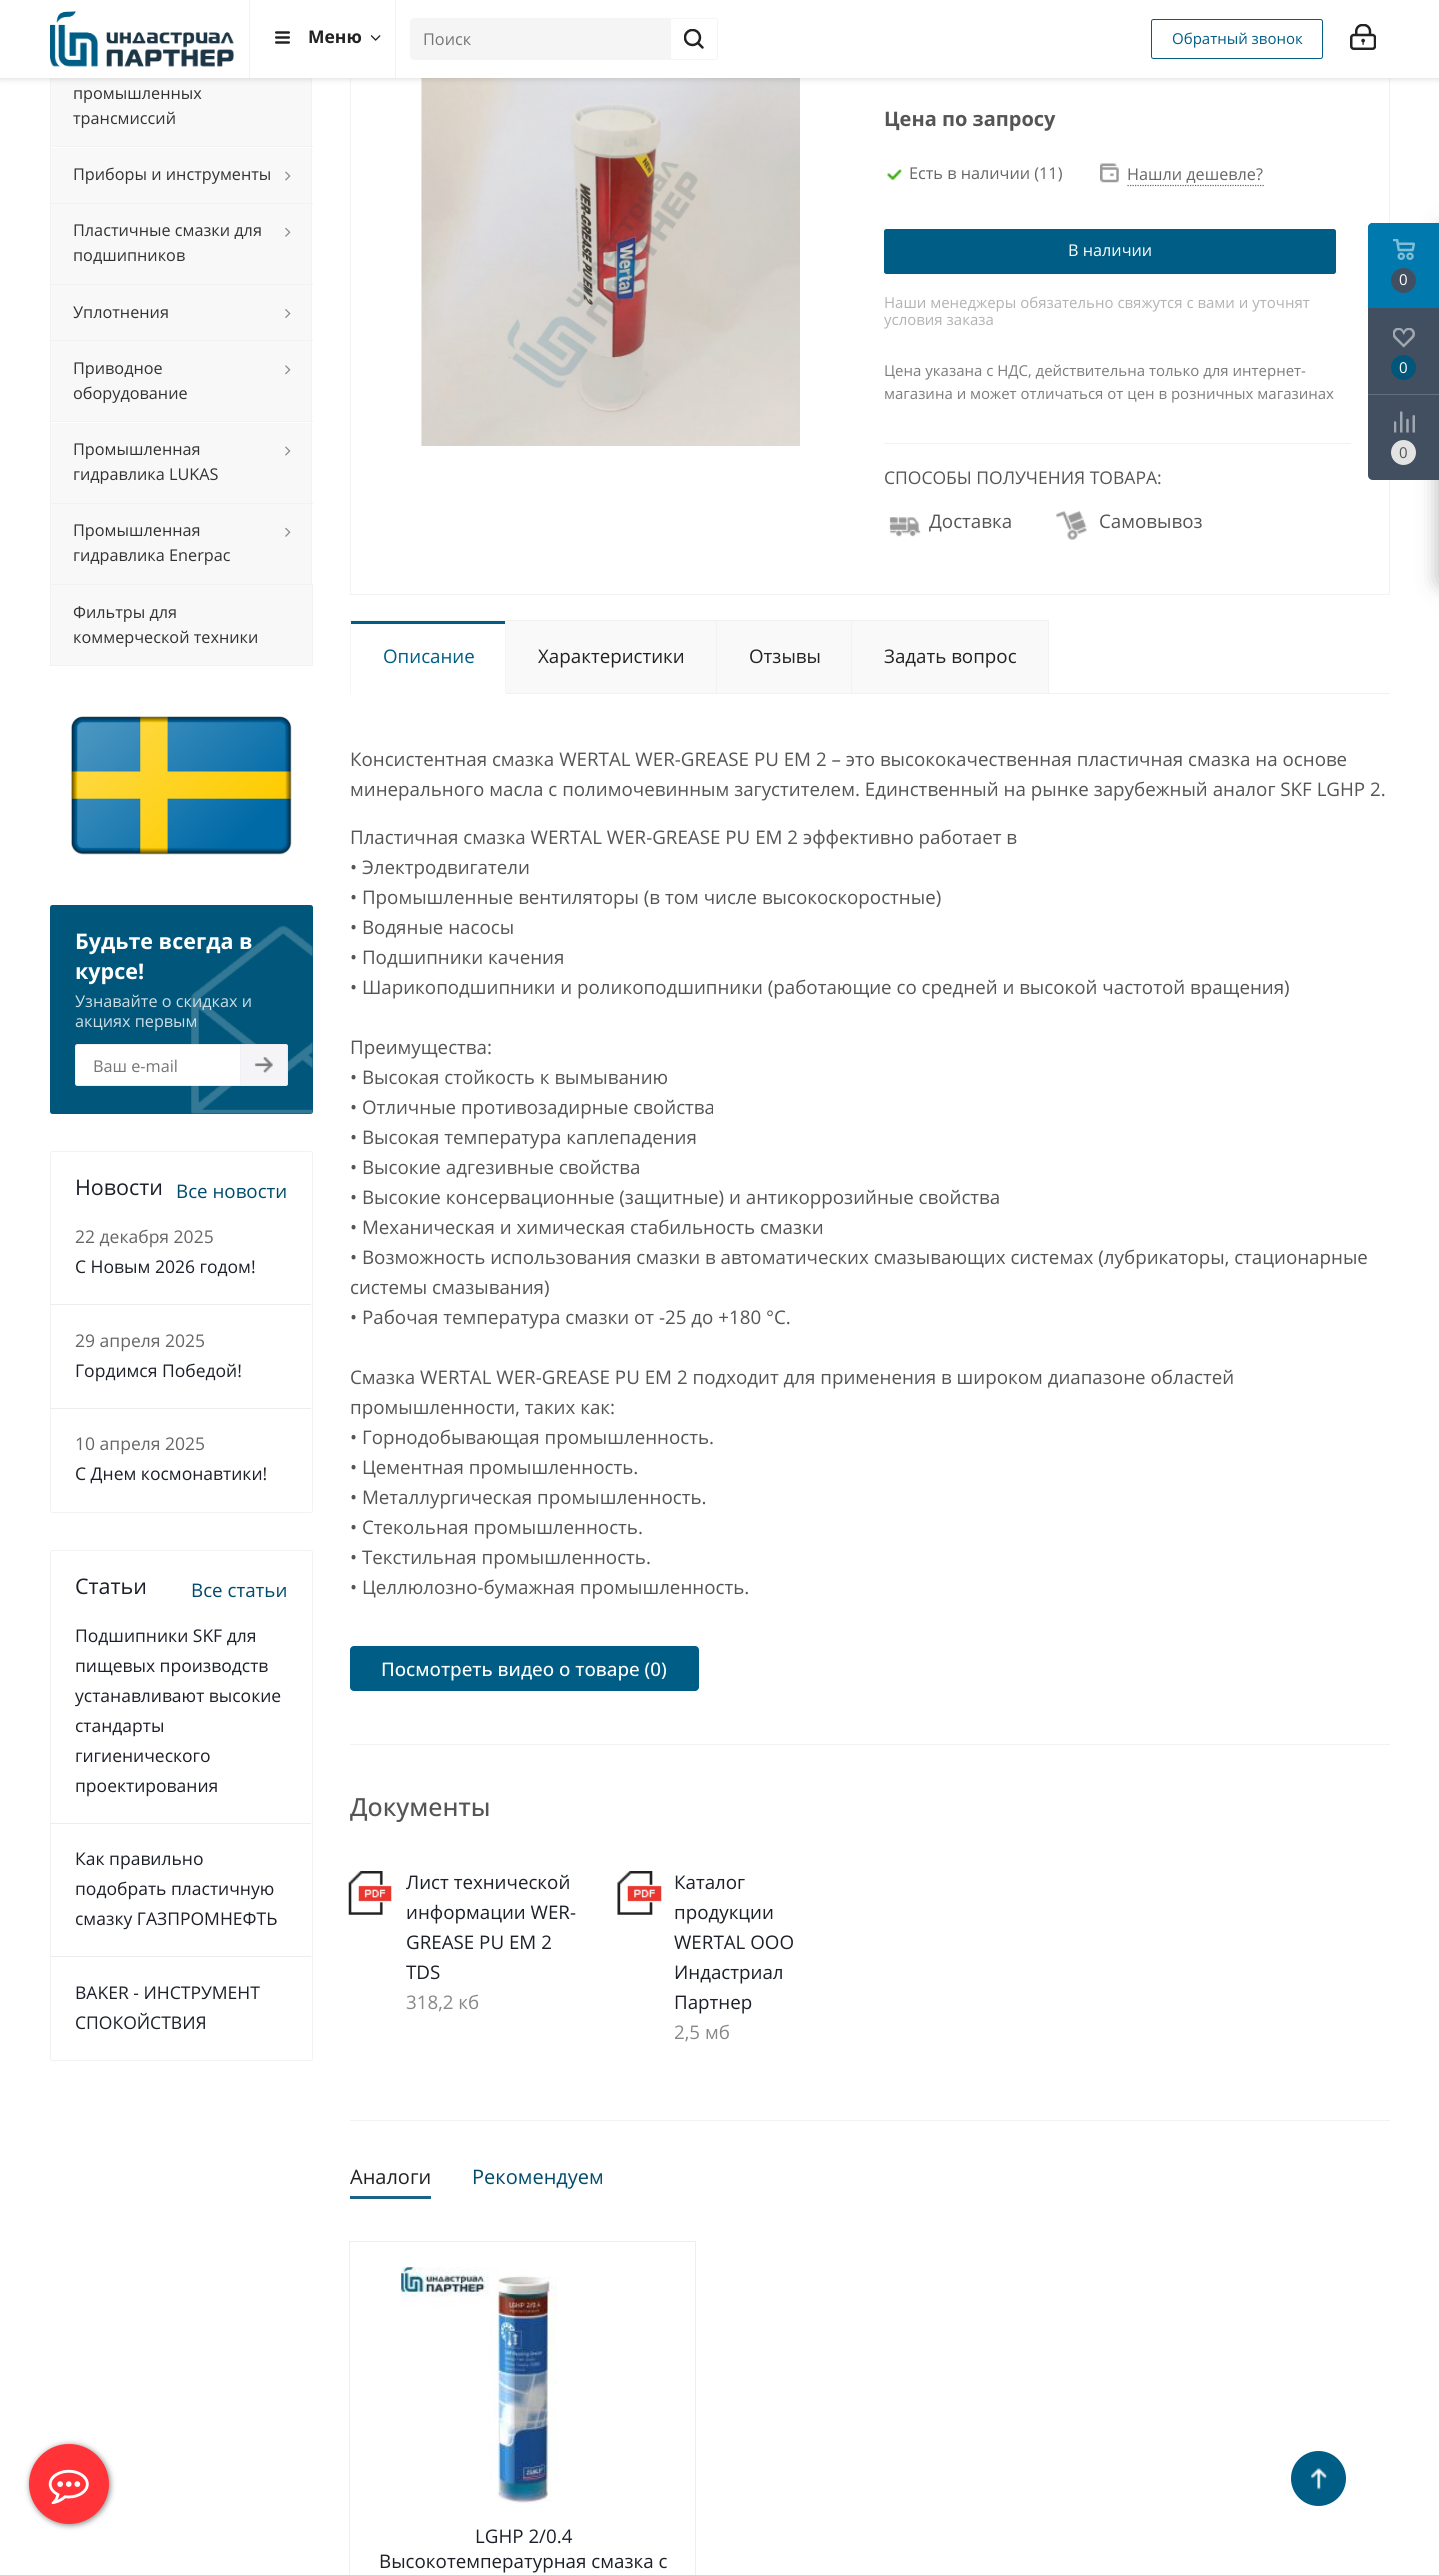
#include <cairo/cairo.h>
#include <math.h>
#include <stddef.h>

static cairo_t *cr;

static void use_color(int r, int g, int b) {
  cairo_set_source_rgb(cr, r / 255.0, g / 255.0, b / 255.0);
}

static void text(double x, double y, const char *s, const char *family, double size, int italic, int bold, int r, int g, int b) {
  cairo_select_font_face(cr, family, italic ? CAIRO_FONT_SLANT_ITALIC : CAIRO_FONT_SLANT_NORMAL,
    bold ? CAIRO_FONT_WEIGHT_BOLD : CAIRO_FONT_WEIGHT_NORMAL);
  cairo_set_font_size(cr, size);
  use_color(r, g, b);
  cairo_move_to(cr, x, y);
  cairo_show_text(cr, s);
}

static void box(double x, double y, double w, double h, int r, int g, int b) {
  use_color(r, g, b);
  cairo_rectangle(cr, x, y, w, h);
  cairo_fill(cr);
}

static void round_rect(double x, double y, double w, double h, double r) {
  cairo_new_sub_path(cr);
  cairo_arc(cr, x + w - r, y + h - r, r, 0, M_PI / 2);
  cairo_arc(cr, x + r, y + h - r, r, M_PI / 2, M_PI);
  cairo_arc(cr, x + r, y + r, r, M_PI, 1.5 * M_PI);
  cairo_arc(cr, x + w - r, y + r, r, 1.5 * M_PI, 2 * M_PI);
  cairo_close_path(cr);
}

static void shadow(double x, double y, double w, double h, double r, double blur, double alpha) {
  cairo_push_group_with_content(cr, CAIRO_CONTENT_ALPHA);
  cairo_set_operator(cr, CAIRO_OPERATOR_SOURCE);
  for (int i = 15; i >= -15 && fmin(w, h) + blur * i / 3 > 0; i -= 2) {
    double e = blur * i / 6;
    cairo_set_source_rgba(cr, 0, 0, 0, alpha * erfc((i - 1) / 8.5) / 2);
    round_rect(x - e, y - e, w + 2 * e, h + 2 * e, fmax(0, fmin(r + e + blur * .6, fmin(w, h) / 2 + e)));
    cairo_fill(cr);
  }
  cairo_pattern_t *soft = cairo_pop_group(cr);
  cairo_mask(cr, soft);
  cairo_pattern_destroy(soft);
}

static void picture(const char *path, double x, double y, double w, double h) {
  cairo_surface_t *image = cairo_image_surface_create_from_png(path);
  cairo_save(cr);
  cairo_set_source_surface(cr, image, x, y);
  cairo_rectangle(cr, x, y, w, h);
  cairo_fill(cr);
  cairo_restore(cr);
  cairo_surface_destroy(image);
}

static void draw(void) {
  use_color(255, 255, 255);
  cairo_paint(cr);
  box(51, 78, 260, 68, 248, 248, 249);
  box(311, 78, 1, 68, 242, 242, 242);
  box(50, 78, 1, 68, 242, 242, 242);
  cairo_rectangle(cr, 350.5, -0.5, 1039, 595);
  cairo_set_line_width(cr, 1);
  cairo_stroke(cr);
  picture("img_13.png", 421, 78, 379, 368);
  use_color(0, 0, 0);
  shadow(0, 1, 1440, 78, 0, 3, 0.14);
  box(0, 0, 1439, 78, 255, 255, 255);
  box(249, 0, 1, 78, 242, 242, 242);
  picture("img_01.png", 50, 11, 184, 56);
  box(395, 0, 1, 78, 242, 242, 242);
  picture("img_02.png", 275, 31, 15, 13);
  picture("img_03.png", 370, 35, 11, 6);
  use_color(245, 245, 245);
  round_rect(410, 18, 308, 42, 4);
  cairo_fill(cr);
  use_color(255, 255, 255);
  round_rect(670.5, 18.5, 47, 41, 2);
  cairo_fill_preserve(cr);
  use_color(245, 245, 245);
  cairo_stroke(cr);
  picture("img_04.png", 684, 29, 20, 20);
  round_rect(1151.5, 19.5, 171, 39, 2);
  use_color(0, 93, 133);
  cairo_stroke(cr);
  picture("img_05.png", 1350, 24, 26, 26);
  box(51, 148, 260, 55, 248, 248, 249);
  box(50, 146, 263, 1, 242, 242, 242);
  box(311, 146, 1, 57, 242, 242, 242);
  box(50, 146, 1, 57, 242, 242, 242);
  picture("img_06.png", 285, 171, 6, 10);
  box(51, 204, 260, 80, 248, 248, 249);
  box(50, 203, 263, 1, 242, 242, 242);
  box(311, 203, 1, 81, 242, 242, 242);
  box(50, 203, 1, 81, 242, 242, 242);
  picture("img_07.png", 285, 227, 6, 10);
  box(51, 285, 260, 55, 248, 248, 249);
  box(50, 284, 263, 1, 242, 242, 242);
  box(311, 284, 1, 56, 242, 242, 242);
  box(50, 284, 1, 56, 242, 242, 242);
  picture("img_08.png", 285, 309, 6, 9);
  box(51, 341, 260, 80, 248, 248, 249);
  box(50, 340, 263, 1, 242, 242, 242);
  box(311, 340, 1, 81, 242, 242, 242);
  box(50, 340, 1, 81, 242, 242, 242);
  picture("img_09.png", 285, 365, 6, 10);
  box(51, 423, 260, 80, 248, 248, 249);
  box(50, 421, 263, 1, 242, 242, 242);
  box(311, 421, 1, 82, 242, 242, 242);
  box(50, 421, 1, 82, 242, 242, 242);
  picture("img_06.png", 285, 446, 6, 10);
  box(51, 504, 260, 80, 248, 248, 249);
  box(50, 503, 263, 1, 242, 242, 242);
  box(311, 503, 1, 81, 242, 242, 242);
  box(50, 503, 1, 81, 242, 242, 242);
  picture("img_07.png", 285, 527, 6, 10);
  use_color(248, 248, 249);
  cairo_rectangle(cr, 50.5, 584.5, 262, 81);
  cairo_fill_preserve(cr);
  use_color(242, 242, 242);
  cairo_stroke(cr);
  picture("img_10.png", 71, 716, 221, 139);
  use_color(0, 86, 123);
  round_rect(50, 905, 263, 209, 2.5);
  cairo_fill(cr);
  round_rect(50.5, 1151.5, 262, 361, 2);
  use_color(242, 242, 242);
  cairo_stroke(cr);
  box(51, 1304, 260, 1, 235, 238, 241);
  box(51, 1408, 260, 1, 235, 238, 241);
  round_rect(50.5, 1550.5, 262, 510, 2);
  use_color(242, 242, 242);
  cairo_stroke(cr);
  box(51, 1823, 260, 1, 235, 238, 241);
  box(51, 1956, 260, 1, 235, 238, 241);
  picture("img_14.png", 887, 169, 15, 11);
  picture("img_15.png", 1100, 163, 19, 20);
  cairo_new_path(cr);
  cairo_move_to(cr, 1127.5, 185.5);
  cairo_line_to(cr, 1264, 185.5);
  use_color(102, 102, 102);
  cairo_set_line_width(cr, 1.2);
  cairo_set_dash(cr, (double[]){1.25, 1.25}, 2, 0);
  cairo_stroke(cr);
  use_color(0, 93, 133);
  round_rect(884.5, 229.5, 451, 44, 2);
  cairo_fill_preserve(cr);
  cairo_set_line_width(cr, 1);
  cairo_set_dash(cr, NULL, 0, 0);
  cairo_stroke(cr);
  box(884, 443, 467, 1, 242, 242, 242);
  picture("img_16.png", 889, 517, 32, 20);
  picture("img_17.png", 1056, 511, 31, 29);
  box(1049, 693, 341, 1, 242, 242, 242);
  box(506, 621, 210, 72, 249, 249, 250);
  cairo_rectangle(cr, 505.5, 620.5, 212, 73);
  use_color(242, 242, 242);
  cairo_stroke(cr);
  box(350, 620, 156, 1, 245, 245, 245);
  box(505, 620, 1, 74, 245, 245, 245);
  box(505, 693, 1, 1, 255, 255, 255);
  box(350, 620, 1, 74, 245, 245, 245);
  box(351, 621, 154, 3, 0, 93, 133);
  box(717, 621, 134, 72, 249, 249, 250);
  cairo_rectangle(cr, 716.5, 620.5, 136, 73);
  use_color(242, 242, 242);
  cairo_stroke(cr);
  use_color(249, 249, 250);
  cairo_rectangle(cr, 851.5, 620.5, 197, 73);
  cairo_fill_preserve(cr);
  use_color(242, 242, 242);
  cairo_stroke(cr);
  use_color(0, 93, 133);
  round_rect(350, 1646, 349, 45, 4);
  cairo_fill(cr);
  box(350, 1744, 1040, 1, 242, 242, 242);
  picture("img_18.png", 348, 1871, 44, 44);
  picture("img_19.png", 617, 1871, 45, 44);
  box(350, 2120, 1040, 1, 242, 242, 242);
  box(350, 2196, 81, 3, 29, 99, 135);
  cairo_rectangle(cr, 349.5, 2241.5, 346, 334);
  use_color(238, 238, 238);
  cairo_stroke(cr);
  picture("img_20.png", 401, 2267, 157, 237);
  use_color(44, 44, 44);
  shadow(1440, 230, 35, 354, 2.5, 11, 0.4);
  use_color(66, 79, 96);
  cairo_new_path(cr);
  cairo_move_to(cr, 1373, 223);
  cairo_line_to(cr, 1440, 223);
  cairo_line_to(cr, 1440, 480);
  cairo_line_to(cr, 1373, 480);
  cairo_curve_to(cr, 1370, 480, 1368, 478, 1368, 475);
  cairo_line_to(cr, 1368, 228);
  cairo_curve_to(cr, 1368, 225, 1370, 223, 1373, 223);
  cairo_close_path(cr);
  cairo_fill(cr);
  use_color(0, 122, 174);
  cairo_new_path(cr);
  cairo_move_to(cr, 1373, 223);
  cairo_line_to(cr, 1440, 223);
  cairo_line_to(cr, 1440, 308);
  cairo_line_to(cr, 1368, 308);
  cairo_line_to(cr, 1368, 228);
  cairo_curve_to(cr, 1368, 225, 1370, 223, 1373, 223);
  cairo_close_path(cr);
  cairo_fill(cr);
  picture("img_21.png", 1393, 239, 22, 21);
  use_color(66, 79, 96);
  cairo_arc(cr, 1403.5, 280.5, 12.5, 0, 2 * M_PI);
  cairo_fill(cr);
  picture("img_22.png", 1393, 328, 22, 20);
  use_color(0, 86, 123);
  cairo_arc(cr, 1403.5, 367.5, 12.5, 0, 2 * M_PI);
  cairo_fill(cr);
  box(1368, 394, 71, 1, 99, 111, 125);
  picture("img_23.png", 1394, 411, 21, 22);
  use_color(227, 227, 227);
  cairo_arc(cr, 1403.5, 452.5, 12.5, 0, 2 * M_PI);
  cairo_fill(cr);
  use_color(0, 0, 0);
  shadow(30, 2445, 80, 80, 40, 3, 0.5);
  use_color(255, 51, 56);
  cairo_arc(cr, 69, 2484, 40, 0, 2 * M_PI);
  cairo_fill(cr);
  picture("img_24.png", 48, 2469, 41, 36);
  use_color(0, 93, 133);
  cairo_arc(cr, 1318.5, 2478.5, 27.5, 0, 2 * M_PI);
  cairo_fill(cr);
  picture("img_25.png", 1311, 2468, 16, 22);
  text(308, 43, "Меню", "Open Sans", 17.5, 0, 1, 34, 34, 34);
  text(423, 45, "Поиск", "Open Sans", 16.25, 0, 0, 117, 117, 117);
  text(1172, 44, "Обратный звонок", "Open Sans", 15, 0, 0, 0, 93, 133);
  text(73, 99, "промышленных", "Open Sans", 16.25, 0, 0, 51, 51, 51);
  text(73, 124, "трансмиссий", "Open Sans", 16.25, 0, 0, 51, 51, 51);
  text(73, 180, "Приборы и инструменты", "Open Sans", 16.25, 0, 0, 51, 51, 51);
  text(73, 236, "Пластичные смазки для", "Open Sans", 16.25, 0, 0, 51, 51, 51);
  text(73, 261, "подшипников", "Open Sans", 16.25, 0, 0, 51, 51, 51);
  text(73, 318, "Уплотнения", "Open Sans", 16.25, 0, 0, 51, 51, 51);
  text(73, 374, "Приводное", "Open Sans", 16.25, 0, 0, 51, 51, 51);
  text(73, 399, "оборудование", "Open Sans", 16.25, 0, 0, 51, 51, 51);
  text(73, 455, "Промышленная", "Open Sans", 16.25, 0, 0, 51, 51, 51);
  text(73, 480, "гидравлика LUKAS", "Open Sans", 16.25, 0, 0, 51, 51, 51);
  text(73, 536, "Промышленная", "Open Sans", 16.25, 0, 0, 51, 51, 51);
  text(73, 561, "гидравлика Enerpac", "Open Sans", 16.25, 0, 0, 51, 51, 51);
  text(73, 618, "Фильтры для", "Open Sans", 16.25, 0, 0, 51, 51, 51);
  text(73, 643, "коммерческой техники", "Open Sans", 16.25, 0, 0, 51, 51, 51);
  text(75, 949, "Будьте всегда в", "Open Sans", 21.5, 0, 1, 255, 255, 255);
  text(75, 979, "курсе!", "Open Sans", 21.5, 0, 1, 255, 255, 255);
  picture("img_11.png", 191, 926, 122, 188);
  text(75, 1027, "акциях первым", "Open Sans", 16.25, 0, 0, 205, 222, 229);
  text(75, 1007, "Узнавайте о скидках и", "Open Sans", 16.25, 0, 0, 205, 222, 229);
  use_color(255, 255, 255);
  round_rect(75.5, 1044.5, 212, 41, 2);
  cairo_fill_preserve(cr);
  use_color(238, 238, 238);
  cairo_stroke(cr);
  text(93, 1072, "Ваш e-mail", "Open Sans", 16.25, 0, 0, 117, 117, 117);
  cairo_set_source_rgba(cr, 0.925, 0.925, 0.949, 0.5);
  cairo_new_path(cr);
  cairo_move_to(cr, 240, 1044);
  cairo_line_to(cr, 285.5, 1044);
  cairo_curve_to(cr, 287, 1044, 288, 1045, 288, 1046.5);
  cairo_line_to(cr, 288, 1083.5);
  cairo_curve_to(cr, 288, 1085, 287, 1086, 285.5, 1086);
  cairo_line_to(cr, 240, 1086);
  cairo_close_path(cr);
  cairo_fill(cr);
  picture("img_12.png", 254, 1057, 19, 16);
  cairo_new_path(cr);
  cairo_move_to(cr, 240.5, 1044.5);
  cairo_line_to(cr, 285.5, 1044.5);
  cairo_curve_to(cr, 286.5, 1044.5, 287.5, 1045.5, 287.5, 1046.5);
  cairo_line_to(cr, 287.5, 1083.5);
  cairo_curve_to(cr, 287.5, 1084.5, 286.5, 1085.5, 285.5, 1085.5);
  cairo_line_to(cr, 240.5, 1085.5);
  cairo_close_path(cr);
  cairo_stroke(cr);
  text(75, 1195, "Новости", "Open Sans", 21.5, 0, 0, 29, 32, 41);
  text(176, 1198, "Все новости", "Open Sans", 18.75, 0, 0, 0, 75, 108);
  text(75, 1243, "22 декабря 2025", "Open Sans", 17.5, 0, 0, 102, 102, 102);
  text(75, 1273, "C Новым 2026 годом!", "Open Sans", 17.5, 0, 0, 29, 32, 41);
  text(75, 1347, "29 апреля 2025", "Open Sans", 17.5, 0, 0, 102, 102, 102);
  text(75, 1377, "Гордимся Победой!", "Open Sans", 17.5, 0, 0, 29, 32, 41);
  text(75, 1450, "10 апреля 2025", "Open Sans", 17.5, 0, 0, 102, 102, 102);
  text(75, 1480, "С Днем космонавтики!", "Open Sans", 17.5, 0, 0, 29, 32, 41);
  text(75, 1594, "Статьи", "Open Sans", 21.5, 0, 0, 29, 32, 41);
  text(191, 1597, "Все статьи", "Open Sans", 18.75, 0, 0, 0, 75, 108);
  text(75, 1642, "Подшипники SKF для", "Open Sans", 17.5, 0, 0, 29, 32, 41);
  text(75, 1672, "пищевых производств", "Open Sans", 17.5, 0, 0, 29, 32, 41);
  text(75, 1702, "устанавливают высокие", "Open Sans", 17.5, 0, 0, 29, 32, 41);
  text(75, 1732, "стандарты", "Open Sans", 17.5, 0, 0, 29, 32, 41);
  text(75, 1762, "гигиенического", "Open Sans", 17.5, 0, 0, 29, 32, 41);
  text(75, 1792, "проектирования", "Open Sans", 17.5, 0, 0, 29, 32, 41);
  text(75, 1865, "Как правильно", "Open Sans", 17.5, 0, 0, 29, 32, 41);
  text(75, 1895, "подобрать пластичную", "Open Sans", 17.5, 0, 0, 29, 32, 41);
  text(75, 1925, "смазку ГАЗПРОМНЕФТЬ", "Open Sans", 17.5, 0, 0, 29, 32, 41);
  text(75, 1999, "BAKER - ИНСТРУМЕНТ", "Open Sans", 17.5, 0, 0, 29, 32, 41);
  text(75, 2029, "СПОКОЙСТВИЯ", "Open Sans", 17.5, 0, 0, 29, 32, 41);
  text(884, 126, "Цена по запросу", "Open Sans", 20, 0, 1, 85, 85, 85);
  text(909, 179, "Есть в наличии (11)", "Open Sans", 16.25, 0, 0, 102, 102, 102);
  text(1127, 180, "Нашли дешевле?", "Open Sans", 16.25, 0, 0, 102, 102, 102);
  text(1068, 256, "В наличии", "Open Sans", 16.25, 0, 0, 255, 255, 255);
  text(884, 308, "Наши менеджеры обязательно свяжутся с вами и уточнят", "Open Sans", 15, 0, 0, 179, 179, 179);
  text(884, 325, "условия заказа", "Open Sans", 15, 0, 0, 179, 179, 179);
  text(884, 376, "Цена указана с НДС, действительна только для интернет-", "Open Sans", 15, 0, 0, 125, 125, 125);
  text(884, 399, "магазина и может отличаться от цен в розничных магазинах", "Open Sans", 15, 0, 0, 125, 125, 125);
  text(884, 484, "СПОСОБЫ ПОЛУЧЕНИЯ ТОВАРА:", "Open Sans", 17.5, 0, 0, 85, 85, 85);
  text(929, 528, "Доставка", "Open Sans", 18.75, 0, 0, 85, 85, 85);
  text(1099, 528, "Самовывоз", "Open Sans", 18.75, 0, 0, 85, 85, 85);
  text(383, 663, "Описание", "Open Sans", 18.75, 0, 0, 0, 93, 133);
  text(538, 663, "Характеристики", "Open Sans", 18.75, 0, 0, 34, 34, 34);
  text(749, 663, "Отзывы", "Open Sans", 18.75, 0, 0, 34, 34, 34);
  text(884, 663, "Задать вопрос", "Open Sans", 18.75, 0, 0, 34, 34, 34);
  text(350, 766, "Консистентная смазка WERTAL WER-GREASE PU EM 2 – это высококачественная пластичная смазка на основе", "Open Sans", 18.75, 0, 0, 85, 85, 85);
  text(350, 796, "минерального масла с полимочевинным загустителем. Единственный на рынке зарубежный аналог SKF LGHP 2.", "Open Sans", 18.75, 0, 0, 85, 85, 85);
  text(350, 844, "Пластичная смазка WERTAL WER-GREASE PU EM 2 эффективно работает в", "Open Sans", 18.75, 0, 0, 85, 85, 85);
  text(350, 874, "• Электродвигатели", "Open Sans", 18.75, 0, 0, 85, 85, 85);
  text(350, 904, "• Промышленные вентиляторы (в том числе высокоскоростные)", "Open Sans", 18.75, 0, 0, 85, 85, 85);
  text(350, 934, "• Водяные насосы", "Open Sans", 18.75, 0, 0, 85, 85, 85);
  text(350, 964, "• Подшипники качения", "Open Sans", 18.75, 0, 0, 85, 85, 85);
  text(350, 994, "• Шарикоподшипники и роликоподшипники (работающие со средней и высокой частотой вращения)", "Open Sans", 18.75, 0, 0, 85, 85, 85);
  text(350, 1054, "Преимущества:", "Open Sans", 18.75, 0, 0, 85, 85, 85);
  text(350, 1084, "• Высокая стойкость к вымыванию", "Open Sans", 18.75, 0, 0, 85, 85, 85);
  text(350, 1114, "• Отличные противозадирные свойства", "Open Sans", 18.75, 0, 0, 85, 85, 85);
  text(350, 1144, "• Высокая температура каплепадения", "Open Sans", 18.75, 0, 0, 85, 85, 85);
  text(350, 1174, "• Высокие адгезивные свойства", "Open Sans", 18.75, 0, 0, 85, 85, 85);
  text(350, 1204, "• Высокие консервационные (защитные) и антикоррозийные свойства", "Open Sans", 18.75, 0, 0, 85, 85, 85);
  text(350, 1234, "• Механическая и химическая стабильность смазки", "Open Sans", 18.75, 0, 0, 85, 85, 85);
  text(350, 1264, "• Возможность использования смазки в автоматических смазывающих системах (лубрикаторы, стационарные", "Open Sans", 18.75, 0, 0, 85, 85, 85);
  text(350, 1294, "системы смазывания)", "Open Sans", 18.75, 0, 0, 85, 85, 85);
  text(350, 1324, "• Рабочая температура смазки от -25 до +180 °C.", "Open Sans", 18.75, 0, 0, 85, 85, 85);
  text(350, 1384, "Смазка WERTAL WER-GREASE PU EM 2 подходит для применения в широком диапазоне областей", "Open Sans", 18.75, 0, 0, 85, 85, 85);
  text(350, 1414, "промышленности, таких как:", "Open Sans", 18.75, 0, 0, 85, 85, 85);
  text(350, 1444, "• Горнодобывающая промышленность.", "Open Sans", 18.75, 0, 0, 85, 85, 85);
  text(350, 1474, "• Цементная промышленность.", "Open Sans", 18.75, 0, 0, 85, 85, 85);
  text(350, 1504, "• Металлургическая промышленность.", "Open Sans", 18.75, 0, 0, 85, 85, 85);
  text(350, 1534, "• Стекольная промышленность.", "Open Sans", 18.75, 0, 0, 85, 85, 85);
  text(350, 1564, "• Текстильная промышленность.", "Open Sans", 18.75, 0, 0, 85, 85, 85);
  text(350, 1594, "• Целлюлозно-бумажная промышленность.", "Open Sans", 18.75, 0, 0, 85, 85, 85);
  text(381, 1676, "Посмотреть видео о товаре (0)", "Open Sans Medium", 18.75, 0, 0, 255, 255, 255);
  text(350, 1816, "Документы", "Open Sans Medium", 25, 0, 0, 85, 85, 85);
  text(406, 1889, "Лист технической", "Open Sans", 18.75, 0, 0, 29, 32, 41);
  text(406, 1919, "информации WER-", "Open Sans", 18.75, 0, 0, 29, 32, 41);
  text(406, 1949, "GREASE PU EM 2", "Open Sans", 18.75, 0, 0, 29, 32, 41);
  text(406, 1979, "TDS", "Open Sans", 18.75, 0, 0, 29, 32, 41);
  text(406, 2009, "318,2 кб", "Open Sans", 18.75, 0, 0, 136, 136, 136);
  text(674, 1889, "Каталог", "Open Sans", 18.75, 0, 0, 29, 32, 41);
  text(674, 1919, "продукции", "Open Sans", 18.75, 0, 0, 29, 32, 41);
  text(674, 1949, "WERTAL ООО", "Open Sans", 18.75, 0, 0, 29, 32, 41);
  text(674, 1979, "Индастриал", "Open Sans", 18.75, 0, 0, 29, 32, 41);
  text(674, 2009, "Партнер", "Open Sans", 18.75, 0, 0, 29, 32, 41);
  text(674, 2039, "2,5 мб", "Open Sans", 18.75, 0, 0, 136, 136, 136);
  text(350, 2184, "Аналоги", "Open Sans", 20, 0, 0, 34, 34, 34);
  text(472, 2184, "Рекомендуем", "Open Sans", 20, 0, 0, 0, 75, 108);
  text(475, 2543, "LGHP 2/0.4", "Open Sans", 18.75, 0, 0, 29, 32, 41);
  text(379, 2568, "Высокотемпературная смазка с", "Open Sans", 18.75, 0, 0, 29, 32, 41);
  text(1399, 285, "0", "Open Sans", 15, 0, 0, 255, 255, 255);
  text(1399, 373, "0", "Open Sans", 15, 0, 0, 255, 255, 255);
  text(1399, 458, "0", "Open Sans", 15, 0, 0, 85, 85, 85);
}

int main(void) {
  cairo_surface_t *surface = cairo_image_surface_create(CAIRO_FORMAT_RGB24, 1439, 2575);
  cr = cairo_create(surface);
  cairo_font_options_t *options = cairo_font_options_create();
  cairo_font_options_set_hint_metrics(options, CAIRO_HINT_METRICS_OFF);
  cairo_font_options_set_hint_style(options, CAIRO_HINT_STYLE_NONE);
  cairo_set_font_options(cr, options);
  cairo_set_miter_limit(cr, 4);
  draw();
  cairo_surface_write_to_png(surface, "out.png");
  cairo_font_options_destroy(options);
  cairo_destroy(cr);
  cairo_surface_destroy(surface);
  return 0;
}
